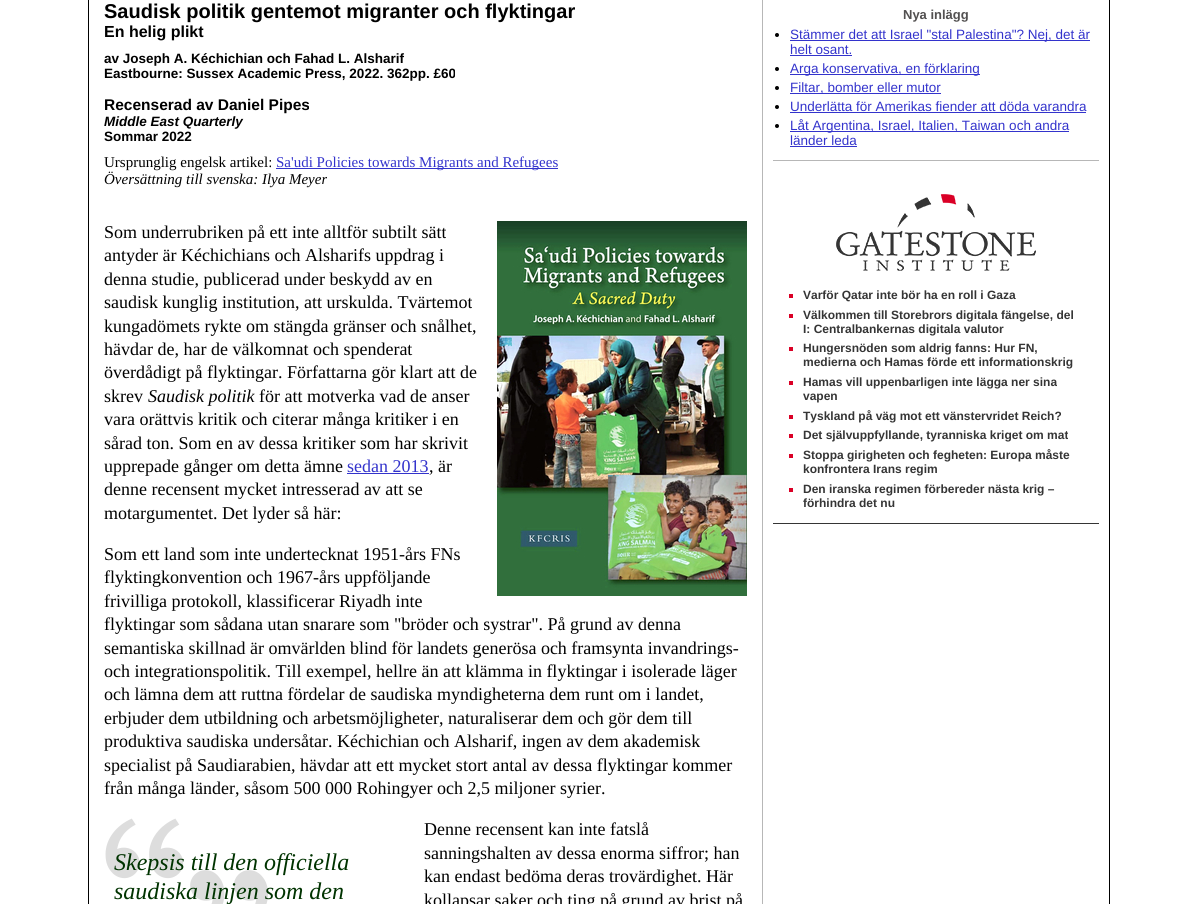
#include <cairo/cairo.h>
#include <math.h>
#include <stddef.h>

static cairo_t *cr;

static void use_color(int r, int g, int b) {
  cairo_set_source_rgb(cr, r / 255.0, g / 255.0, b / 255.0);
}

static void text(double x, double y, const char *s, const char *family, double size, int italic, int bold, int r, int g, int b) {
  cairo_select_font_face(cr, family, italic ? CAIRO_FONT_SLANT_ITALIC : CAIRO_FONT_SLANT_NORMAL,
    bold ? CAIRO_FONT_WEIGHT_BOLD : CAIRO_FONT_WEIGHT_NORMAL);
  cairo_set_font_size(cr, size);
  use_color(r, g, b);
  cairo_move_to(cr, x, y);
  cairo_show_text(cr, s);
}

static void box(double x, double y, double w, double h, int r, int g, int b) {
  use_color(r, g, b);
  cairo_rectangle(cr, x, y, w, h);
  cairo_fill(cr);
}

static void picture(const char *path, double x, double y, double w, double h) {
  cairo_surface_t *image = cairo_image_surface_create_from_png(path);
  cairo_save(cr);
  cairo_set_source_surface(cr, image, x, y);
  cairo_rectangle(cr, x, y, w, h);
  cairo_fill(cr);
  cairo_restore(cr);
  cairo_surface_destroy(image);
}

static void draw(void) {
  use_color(255, 255, 255);
  cairo_paint(cr);
  cairo_rectangle(cr, 88.5, -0.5, 1021, 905);
  use_color(0, 0, 0);
  cairo_set_line_width(cr, 1);
  cairo_stroke(cr);
  box(276, 168, 282, 1, 51, 51, 204);
  box(347, 473, 82, 1, 51, 51, 204);
  picture("img_01.png", 497, 221, 250, 375);
  picture("img_02.png", 105, 818, 163, 86);
  box(762, 0, 1, 904, 183, 183, 183);
  box(773, 160, 326, 1, 183, 183, 183);
  use_color(0, 0, 0);
  cairo_arc(cr, 777, 35, 2, 0, 2 * M_PI);
  cairo_fill(cr);
  box(790, 40, 300, 1, 51, 51, 204);
  box(790, 55, 62, 1, 51, 51, 204);
  use_color(0, 0, 0);
  cairo_arc(cr, 777, 69, 2, 0, 2 * M_PI);
  cairo_fill(cr);
  box(790, 74, 190, 1, 51, 51, 204);
  use_color(0, 0, 0);
  cairo_arc(cr, 777, 88, 2, 0, 2 * M_PI);
  cairo_fill(cr);
  box(790, 93, 151, 1, 51, 51, 204);
  use_color(0, 0, 0);
  cairo_arc(cr, 777, 107, 2, 0, 2 * M_PI);
  cairo_fill(cr);
  box(790, 112, 296, 1, 51, 51, 204);
  use_color(0, 0, 0);
  cairo_arc(cr, 777, 126, 2, 0, 2 * M_PI);
  cairo_fill(cr);
  box(790, 131, 279, 1, 51, 51, 204);
  box(790, 146, 67, 1, 51, 51, 204);
  box(773, 523, 326, 1, 53, 53, 53);
  picture("img_03.png", 836, 194, 200, 77);
  box(789, 294, 4, 4, 218, 0, 38);
  box(789, 314, 4, 4, 218, 0, 38);
  box(789, 347, 4, 4, 218, 0, 38);
  box(789, 381, 4, 4, 218, 0, 38);
  box(789, 415, 4, 4, 218, 0, 38);
  box(789, 434, 4, 4, 218, 0, 38);
  box(789, 454, 4, 4, 218, 0, 38);
  box(789, 488, 4, 4, 218, 0, 38);
  text(104, 18, "Saudisk politik gentemot migranter och flyktingar", "Liberation Sans", 20, 0, 1, 0, 0, 0);
  text(104, 37, "En helig plikt", "Liberation Sans", 16, 0, 1, 0, 0, 0);
  text(104, 63, "av Joseph A. Kéchichian och Fahad L. Alsharif", "Liberation Sans", 13.5, 0, 1, 0, 0, 0);
  text(104, 78, "Eastbourne: Sussex Academic Press, 2022. 362pp. £60", "Liberation Sans", 13.5, 0, 1, 0, 0, 0);
  text(104, 110, "Recenserad av Daniel Pipes", "Liberation Sans", 15.5, 0, 1, 0, 0, 0);
  text(104, 126, "Middle East Quarterly", "Liberation Sans", 13.5, 1, 1, 0, 0, 0);
  text(104, 141, "Sommar 2022", "Liberation Sans", 13.5, 0, 1, 0, 0, 0);
  text(104, 167, "Ursprunglig engelsk artikel:", "Liberation Serif", 15, 0, 0, 0, 0, 0);
  text(276, 167, "Sa'udi Policies towards Migrants and Refugees", "Liberation Serif", 15, 0, 0, 51, 51, 204);
  text(104, 184, "Översättning till svenska: Ilya Meyer", "Liberation Serif", 15, 1, 0, 0, 0, 0);
  text(104, 238, "Som underrubriken på ett inte alltför subtilt sätt", "Liberation Serif", 18, 0, 0, 0, 0, 0);
  text(104, 261, "antyder är Kéchichians och Alsharifs uppdrag i", "Liberation Serif", 18, 0, 0, 0, 0, 0);
  text(104, 285, "denna studie, publicerad under beskydd av en", "Liberation Serif", 18, 0, 0, 0, 0, 0);
  text(104, 308, "saudisk kunglig institution, att urskulda. Tvärtemot", "Liberation Serif", 18, 0, 0, 0, 0, 0);
  text(104, 332, "kungadömets rykte om stängda gränser och snålhet,", "Liberation Serif", 18, 0, 0, 0, 0, 0);
  text(104, 355, "hävdar de, har de välkomnat och spenderat", "Liberation Serif", 18, 0, 0, 0, 0, 0);
  text(104, 378, "överdådigt på flyktingar. Författarna gör klart att de", "Liberation Serif", 18, 0, 0, 0, 0, 0);
  text(104, 402, "skrev", "Liberation Serif", 18, 0, 0, 0, 0, 0);
  text(148, 402, "Saudisk politik", "Liberation Serif", 18, 1, 0, 0, 0, 0);
  text(259, 402, "för att motverka vad de anser", "Liberation Serif", 18, 0, 0, 0, 0, 0);
  text(104, 425, "vara orättvis kritik och citerar många kritiker i en", "Liberation Serif", 18, 0, 0, 0, 0, 0);
  text(104, 449, "sårad ton. Som en av dessa kritiker som har skrivit", "Liberation Serif", 18, 0, 0, 0, 0, 0);
  text(104, 472, "upprepade gånger om detta ämne", "Liberation Serif", 18, 0, 0, 0, 0, 0);
  text(347, 472, "sedan 2013", "Liberation Serif", 18, 0, 0, 51, 51, 204);
  text(429, 472, ", är", "Liberation Serif", 18, 0, 0, 0, 0, 0);
  text(104, 495, "denne recensent mycket intresserad av att se", "Liberation Serif", 18, 0, 0, 0, 0, 0);
  text(104, 519, "motargumentet. Det lyder så här:", "Liberation Serif", 18, 0, 0, 0, 0, 0);
  text(104, 560, "Som ett land som inte undertecknat 1951-års FNs", "Liberation Serif", 18, 0, 0, 0, 0, 0);
  text(104, 583, "flyktingkonvention och 1967-års uppföljande", "Liberation Serif", 18, 0, 0, 0, 0, 0);
  text(104, 607, "frivilliga protokoll, klassificerar Riyadh inte", "Liberation Serif", 18, 0, 0, 0, 0, 0);
  text(104, 630, "flyktingar som sådana utan snarare som \"bröder och systrar\". På grund av denna", "Liberation Serif", 18, 0, 0, 0, 0, 0);
  text(104, 654, "semantiska skillnad är omvärlden blind för landets generösa och framsynta invandrings-", "Liberation Serif", 18, 0, 0, 0, 0, 0);
  text(104, 677, "och integrationspolitik. Till exempel, hellre än att klämma in flyktingar i isolerade läger", "Liberation Serif", 18, 0, 0, 0, 0, 0);
  text(104, 700, "och lämna dem att ruttna fördelar de saudiska myndigheterna dem runt om i landet,", "Liberation Serif", 18, 0, 0, 0, 0, 0);
  text(104, 724, "erbjuder dem utbildning och arbetsmöjligheter, naturaliserar dem och gör dem till", "Liberation Serif", 18, 0, 0, 0, 0, 0);
  text(104, 747, "produktiva saudiska undersåtar. Kéchichian och Alsharif, ingen av dem akademisk", "Liberation Serif", 18, 0, 0, 0, 0, 0);
  text(104, 771, "specialist på Saudiarabien, hävdar att ett mycket stort antal av dessa flyktingar kommer", "Liberation Serif", 18, 0, 0, 0, 0, 0);
  text(104, 794, "från många länder, såsom 500 000 Rohingyer och 2,5 miljoner syrier.", "Liberation Serif", 18, 0, 0, 0, 0, 0);
  text(114, 870, "Skepsis till den officiella", "Liberation Serif", 24, 1, 0, 0, 51, 0);
  text(114, 899, "saudiska linjen som den", "Liberation Serif", 24, 1, 0, 0, 51, 0);
  text(424, 835, "Denne recensent kan inte fatslå", "Liberation Serif", 18, 0, 0, 0, 0, 0);
  text(424, 859, "sanningshalten av dessa enorma siffror; han", "Liberation Serif", 18, 0, 0, 0, 0, 0);
  text(424, 882, "kan endast bedöma deras trovärdighet. Här", "Liberation Serif", 18, 0, 0, 0, 0, 0);
  text(424, 906, "kollapsar saker och ting på grund av brist på", "Liberation Serif", 18, 0, 0, 0, 0, 0);
  text(903, 19, "Nya inlägg", "Liberation Sans", 13, 0, 1, 82, 80, 80);
  text(790, 39, "Stämmer det att Israel \"stal Palestina\"? Nej, det är", "Liberation Sans", 13.5, 0, 0, 51, 51, 204);
  text(790, 54, "helt osant.", "Liberation Sans", 13.5, 0, 0, 51, 51, 204);
  text(790, 73, "Arga konservativa, en förklaring", "Liberation Sans", 13.5, 0, 0, 51, 51, 204);
  text(790, 92, "Filtar, bomber eller mutor", "Liberation Sans", 13.5, 0, 0, 51, 51, 204);
  text(790, 111, "Underlätta för Amerikas fiender att döda varandra", "Liberation Sans", 13.5, 0, 0, 51, 51, 204);
  text(790, 130, "Låt Argentina, Israel, Italien, Taiwan och andra", "Liberation Sans", 13.5, 0, 0, 51, 51, 204);
  text(790, 145, "länder leda", "Liberation Sans", 13.5, 0, 0, 51, 51, 204);
  text(803, 299, "Varför Qatar inte bör ha en roll i Gaza", "Liberation Sans", 12, 0, 1, 53, 53, 53);
  text(803, 319, "Välkommen till Storebrors digitala fängelse, del", "Liberation Sans", 12, 0, 1, 53, 53, 53);
  text(803, 333, "I: Centralbankernas digitala valutor", "Liberation Sans", 12, 0, 1, 53, 53, 53);
  text(803, 352, "Hungersnöden som aldrig fanns: Hur FN,", "Liberation Sans", 12, 0, 1, 53, 53, 53);
  text(803, 366, "medierna och Hamas förde ett informationskrig", "Liberation Sans", 12, 0, 1, 53, 53, 53);
  text(803, 386, "Hamas vill uppenbarligen inte lägga ner sina", "Liberation Sans", 12, 0, 1, 53, 53, 53);
  text(803, 400, "vapen", "Liberation Sans", 12, 0, 1, 53, 53, 53);
  text(803, 420, "Tyskland på väg mot ett vänstervridet Reich?", "Liberation Sans", 12, 0, 1, 53, 53, 53);
  text(803, 439, "Det självuppfyllande, tyranniska kriget om mat", "Liberation Sans", 12, 0, 1, 53, 53, 53);
  text(803, 459, "Stoppa girigheten och fegheten: Europa måste", "Liberation Sans", 12, 0, 1, 53, 53, 53);
  text(803, 473, "konfrontera Irans regim", "Liberation Sans", 12, 0, 1, 53, 53, 53);
  text(803, 493, "Den iranska regimen förbereder nästa krig –", "Liberation Sans", 12, 0, 1, 53, 53, 53);
  text(803, 507, "förhindra det nu", "Liberation Sans", 12, 0, 1, 53, 53, 53);
}

int main(void) {
  cairo_surface_t *surface = cairo_image_surface_create(CAIRO_FORMAT_RGB24, 1198, 904);
  cr = cairo_create(surface);
  cairo_font_options_t *options = cairo_font_options_create();
  cairo_font_options_set_hint_metrics(options, CAIRO_HINT_METRICS_OFF);
  cairo_font_options_set_hint_style(options, CAIRO_HINT_STYLE_NONE);
  cairo_set_font_options(cr, options);
  cairo_set_miter_limit(cr, 4);
  draw();
  cairo_surface_write_to_png(surface, "out.png");
  cairo_font_options_destroy(options);
  cairo_destroy(cr);
  cairo_surface_destroy(surface);
  return 0;
}
